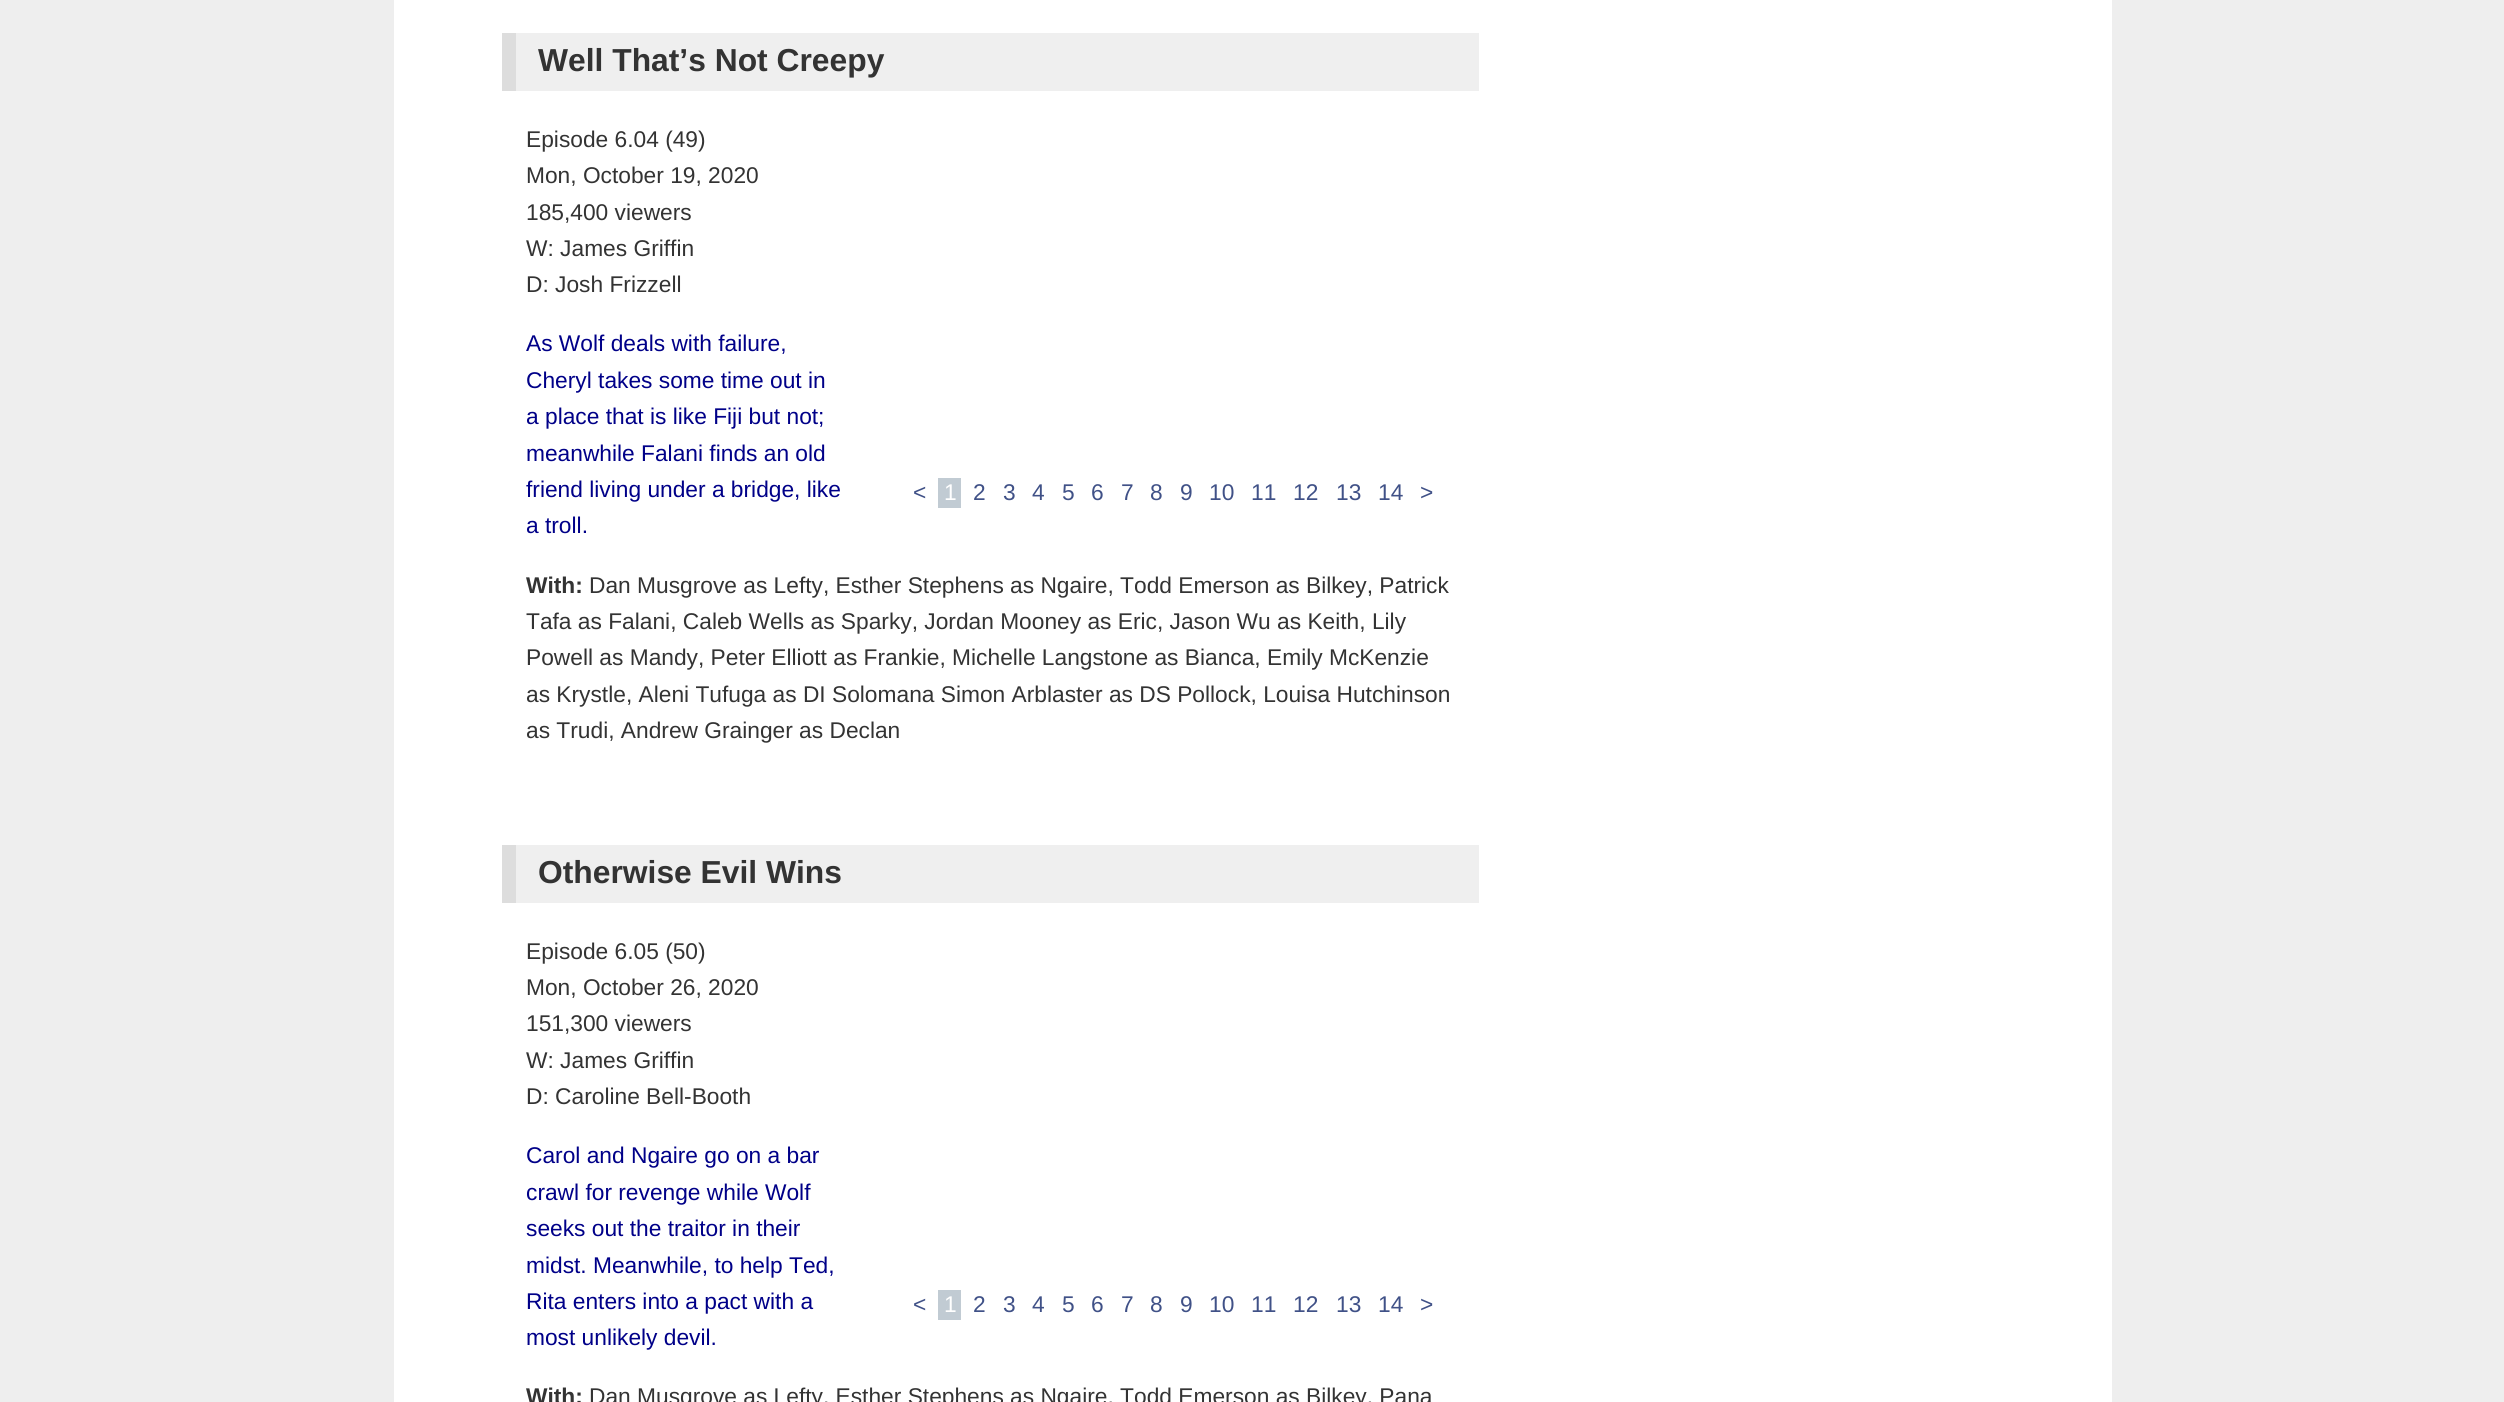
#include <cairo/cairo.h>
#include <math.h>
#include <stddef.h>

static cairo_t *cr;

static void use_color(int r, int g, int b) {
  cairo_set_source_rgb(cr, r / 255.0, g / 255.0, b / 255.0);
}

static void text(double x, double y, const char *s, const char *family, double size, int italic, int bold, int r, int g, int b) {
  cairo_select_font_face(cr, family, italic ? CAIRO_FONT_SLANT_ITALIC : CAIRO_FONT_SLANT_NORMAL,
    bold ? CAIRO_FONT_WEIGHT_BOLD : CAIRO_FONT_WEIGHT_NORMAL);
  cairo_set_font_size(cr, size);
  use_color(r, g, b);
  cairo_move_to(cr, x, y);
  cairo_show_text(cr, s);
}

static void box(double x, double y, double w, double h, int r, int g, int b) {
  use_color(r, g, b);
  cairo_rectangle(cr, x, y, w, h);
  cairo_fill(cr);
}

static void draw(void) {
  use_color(238, 238, 238);
  cairo_paint(cr);
  box(394, 0, 1193, 1402, 255, 255, 255);
  box(516, 33, 963, 58, 239, 239, 239);
  box(502, 33, 14, 58, 221, 221, 221);
  box(938, 478, 23, 30, 193, 203, 211);
  box(516, 845, 963, 58, 239, 239, 239);
  box(502, 845, 14, 58, 221, 221, 221);
  box(938, 1290, 23, 30, 193, 203, 211);
  box(1587, 0, 525, 455, 255, 255, 255);
  box(1587, 455, 525, 947, 255, 255, 255);
  text(538, 71, "Well That’s Not Creepy", "Liberation Sans", 31.8, 0, 1, 51, 51, 51);
  text(526, 147, "Episode 6.04 (49)", "Liberation Sans", 22.75, 0, 0, 51, 51, 51);
  text(526, 183, "Mon, October 19, 2020", "Liberation Sans", 22.75, 0, 0, 51, 51, 51);
  text(526, 220, "185,400 viewers", "Liberation Sans", 22.75, 0, 0, 51, 51, 51);
  text(526, 256, "W: James Griffin", "Liberation Sans", 22.75, 0, 0, 51, 51, 51);
  text(526, 292, "D: Josh Frizzell", "Liberation Sans", 22.75, 0, 0, 51, 51, 51);
  text(526, 351, "As Wolf deals with failure,", "Liberation Sans", 22.75, 0, 0, 0, 0, 136);
  text(526, 388, "Cheryl takes some time out in", "Liberation Sans", 22.75, 0, 0, 0, 0, 136);
  text(526, 424, "a place that is like Fiji but not;", "Liberation Sans", 22.75, 0, 0, 0, 0, 136);
  text(526, 461, "meanwhile Falani finds an old", "Liberation Sans", 22.75, 0, 0, 0, 0, 136);
  text(526, 497, "friend living under a bridge, like", "Liberation Sans", 22.75, 0, 0, 0, 0, 136);
  text(526, 533, "a troll.", "Liberation Sans", 22.75, 0, 0, 0, 0, 136);
  text(913, 500, "<", "Liberation Sans", 22.75, 0, 0, 64, 81, 135);
  text(944, 500, "1", "Liberation Sans", 22.75, 0, 0, 255, 255, 255);
  text(973, 500, "2", "Liberation Sans", 22.75, 0, 0, 64, 81, 135);
  text(1003, 500, "3", "Liberation Sans", 22.75, 0, 0, 64, 81, 135);
  text(1032, 500, "4", "Liberation Sans", 22.75, 0, 0, 64, 81, 135);
  text(1062, 500, "5", "Liberation Sans", 22.75, 0, 0, 64, 81, 135);
  text(1091, 500, "6", "Liberation Sans", 22.75, 0, 0, 64, 81, 135);
  text(1121, 500, "7", "Liberation Sans", 22.75, 0, 0, 64, 81, 135);
  text(1150, 500, "8", "Liberation Sans", 22.75, 0, 0, 64, 81, 135);
  text(1180, 500, "9", "Liberation Sans", 22.75, 0, 0, 64, 81, 135);
  text(1209, 500, "10", "Liberation Sans", 22.75, 0, 0, 64, 81, 135);
  text(1251, 500, "11", "Liberation Sans", 22.75, 0, 0, 64, 81, 135);
  text(1293, 500, "12", "Liberation Sans", 22.75, 0, 0, 64, 81, 135);
  text(1336, 500, "13", "Liberation Sans", 22.75, 0, 0, 64, 81, 135);
  text(1378, 500, "14", "Liberation Sans", 22.75, 0, 0, 64, 81, 135);
  text(1420, 500, ">", "Liberation Sans", 22.75, 0, 0, 64, 81, 135);
  text(526, 593, "With:", "Liberation Sans", 22.75, 0, 1, 51, 51, 51);
  text(589, 593, "Dan Musgrove as Lefty, Esther Stephens as Ngaire, Todd Emerson as Bilkey, Patrick", "Liberation Sans", 22.75, 0, 0, 51, 51, 51);
  text(526, 629, "Tafa as Falani, Caleb Wells as Sparky, Jordan Mooney as Eric, Jason Wu as Keith, Lily", "Liberation Sans", 22.75, 0, 0, 51, 51, 51);
  text(526, 665, "Powell as Mandy, Peter Elliott as Frankie, Michelle Langstone as Bianca, Emily McKenzie", "Liberation Sans", 22.75, 0, 0, 51, 51, 51);
  text(526, 702, "as Krystle, Aleni Tufuga as DI Solomana Simon Arblaster as DS Pollock, Louisa Hutchinson", "Liberation Sans", 22.75, 0, 0, 51, 51, 51);
  text(526, 738, "as Trudi, Andrew Grainger as Declan", "Liberation Sans", 22.75, 0, 0, 51, 51, 51);
  text(538, 883, "Otherwise Evil Wins", "Liberation Sans", 31.8, 0, 1, 51, 51, 51);
  text(526, 959, "Episode 6.05 (50)", "Liberation Sans", 22.75, 0, 0, 51, 51, 51);
  text(526, 995, "Mon, October 26, 2020", "Liberation Sans", 22.75, 0, 0, 51, 51, 51);
  text(526, 1031, "151,300 viewers", "Liberation Sans", 22.75, 0, 0, 51, 51, 51);
  text(526, 1068, "W: James Griffin", "Liberation Sans", 22.75, 0, 0, 51, 51, 51);
  text(526, 1104, "D: Caroline Bell-Booth", "Liberation Sans", 22.75, 0, 0, 51, 51, 51);
  text(526, 1163, "Carol and Ngaire go on a bar", "Liberation Sans", 22.75, 0, 0, 0, 0, 136);
  text(526, 1200, "crawl for revenge while Wolf", "Liberation Sans", 22.75, 0, 0, 0, 0, 136);
  text(526, 1236, "seeks out the traitor in their", "Liberation Sans", 22.75, 0, 0, 0, 0, 136);
  text(526, 1273, "midst. Meanwhile, to help Ted,", "Liberation Sans", 22.75, 0, 0, 0, 0, 136);
  text(526, 1309, "Rita enters into a pact with a", "Liberation Sans", 22.75, 0, 0, 0, 0, 136);
  text(526, 1345, "most unlikely devil.", "Liberation Sans", 22.75, 0, 0, 0, 0, 136);
  text(913, 1312, "<", "Liberation Sans", 22.75, 0, 0, 64, 81, 135);
  text(944, 1312, "1", "Liberation Sans", 22.75, 0, 0, 255, 255, 255);
  text(973, 1312, "2", "Liberation Sans", 22.75, 0, 0, 64, 81, 135);
  text(1003, 1312, "3", "Liberation Sans", 22.75, 0, 0, 64, 81, 135);
  text(1032, 1312, "4", "Liberation Sans", 22.75, 0, 0, 64, 81, 135);
  text(1062, 1312, "5", "Liberation Sans", 22.75, 0, 0, 64, 81, 135);
  text(1091, 1312, "6", "Liberation Sans", 22.75, 0, 0, 64, 81, 135);
  text(1121, 1312, "7", "Liberation Sans", 22.75, 0, 0, 64, 81, 135);
  text(1150, 1312, "8", "Liberation Sans", 22.75, 0, 0, 64, 81, 135);
  text(1180, 1312, "9", "Liberation Sans", 22.75, 0, 0, 64, 81, 135);
  text(1209, 1312, "10", "Liberation Sans", 22.75, 0, 0, 64, 81, 135);
  text(1251, 1312, "11", "Liberation Sans", 22.75, 0, 0, 64, 81, 135);
  text(1293, 1312, "12", "Liberation Sans", 22.75, 0, 0, 64, 81, 135);
  text(1336, 1312, "13", "Liberation Sans", 22.75, 0, 0, 64, 81, 135);
  text(1378, 1312, "14", "Liberation Sans", 22.75, 0, 0, 64, 81, 135);
  text(1420, 1312, ">", "Liberation Sans", 22.75, 0, 0, 64, 81, 135);
  text(526, 1404, "With:", "Liberation Sans", 22.75, 0, 1, 51, 51, 51);
  text(589, 1404, "Dan Musgrove as Lefty, Esther Stephens as Ngaire, Todd Emerson as Bilkey, Pana", "Liberation Sans", 22.75, 0, 0, 51, 51, 51);
}

int main(void) {
  cairo_surface_t *surface = cairo_image_surface_create(CAIRO_FORMAT_RGB24, 2504, 1402);
  cr = cairo_create(surface);
  cairo_font_options_t *options = cairo_font_options_create();
  cairo_font_options_set_hint_metrics(options, CAIRO_HINT_METRICS_OFF);
  cairo_font_options_set_hint_style(options, CAIRO_HINT_STYLE_NONE);
  cairo_set_font_options(cr, options);
  cairo_set_miter_limit(cr, 4);
  draw();
  cairo_surface_write_to_png(surface, "out.png");
  cairo_font_options_destroy(options);
  cairo_destroy(cr);
  cairo_surface_destroy(surface);
  return 0;
}
